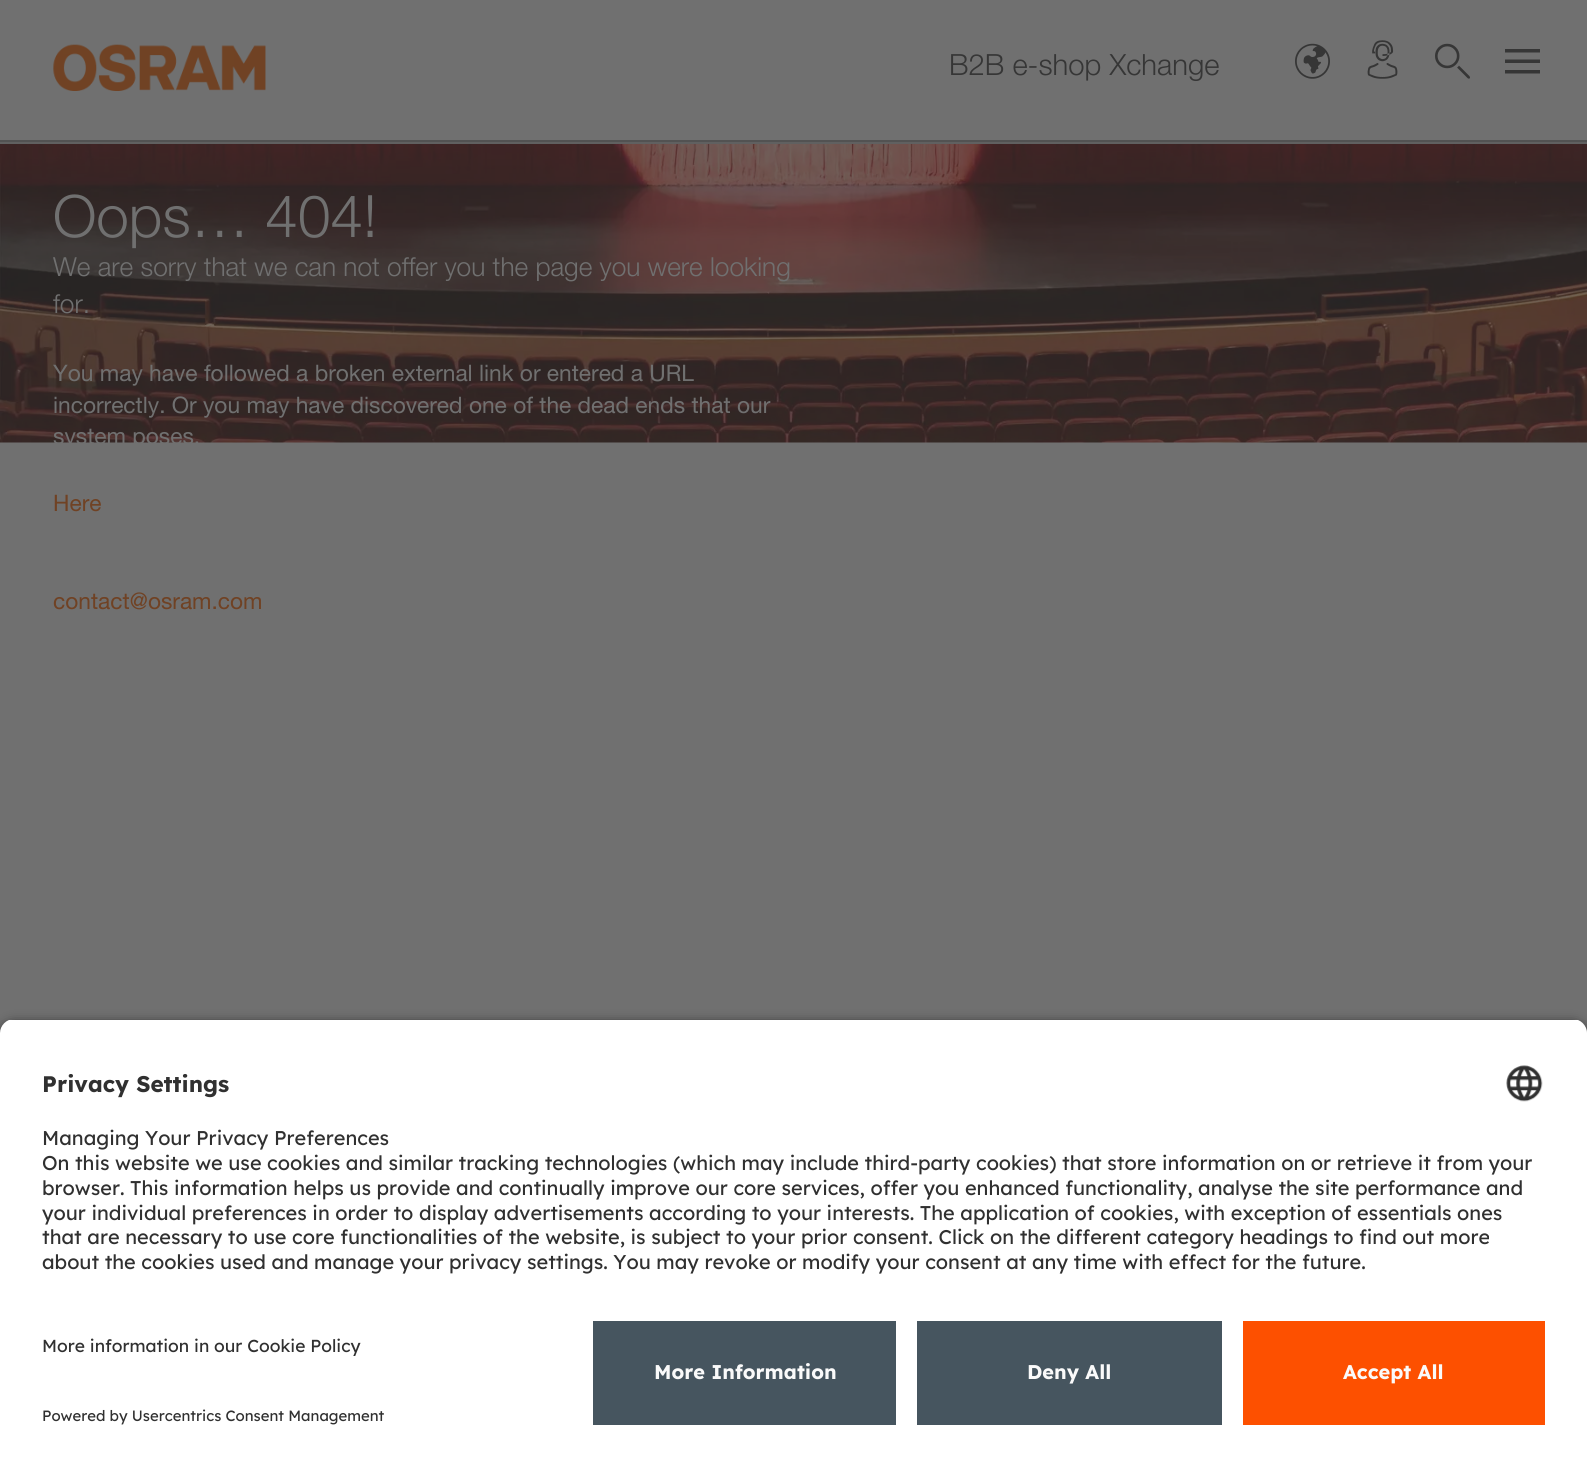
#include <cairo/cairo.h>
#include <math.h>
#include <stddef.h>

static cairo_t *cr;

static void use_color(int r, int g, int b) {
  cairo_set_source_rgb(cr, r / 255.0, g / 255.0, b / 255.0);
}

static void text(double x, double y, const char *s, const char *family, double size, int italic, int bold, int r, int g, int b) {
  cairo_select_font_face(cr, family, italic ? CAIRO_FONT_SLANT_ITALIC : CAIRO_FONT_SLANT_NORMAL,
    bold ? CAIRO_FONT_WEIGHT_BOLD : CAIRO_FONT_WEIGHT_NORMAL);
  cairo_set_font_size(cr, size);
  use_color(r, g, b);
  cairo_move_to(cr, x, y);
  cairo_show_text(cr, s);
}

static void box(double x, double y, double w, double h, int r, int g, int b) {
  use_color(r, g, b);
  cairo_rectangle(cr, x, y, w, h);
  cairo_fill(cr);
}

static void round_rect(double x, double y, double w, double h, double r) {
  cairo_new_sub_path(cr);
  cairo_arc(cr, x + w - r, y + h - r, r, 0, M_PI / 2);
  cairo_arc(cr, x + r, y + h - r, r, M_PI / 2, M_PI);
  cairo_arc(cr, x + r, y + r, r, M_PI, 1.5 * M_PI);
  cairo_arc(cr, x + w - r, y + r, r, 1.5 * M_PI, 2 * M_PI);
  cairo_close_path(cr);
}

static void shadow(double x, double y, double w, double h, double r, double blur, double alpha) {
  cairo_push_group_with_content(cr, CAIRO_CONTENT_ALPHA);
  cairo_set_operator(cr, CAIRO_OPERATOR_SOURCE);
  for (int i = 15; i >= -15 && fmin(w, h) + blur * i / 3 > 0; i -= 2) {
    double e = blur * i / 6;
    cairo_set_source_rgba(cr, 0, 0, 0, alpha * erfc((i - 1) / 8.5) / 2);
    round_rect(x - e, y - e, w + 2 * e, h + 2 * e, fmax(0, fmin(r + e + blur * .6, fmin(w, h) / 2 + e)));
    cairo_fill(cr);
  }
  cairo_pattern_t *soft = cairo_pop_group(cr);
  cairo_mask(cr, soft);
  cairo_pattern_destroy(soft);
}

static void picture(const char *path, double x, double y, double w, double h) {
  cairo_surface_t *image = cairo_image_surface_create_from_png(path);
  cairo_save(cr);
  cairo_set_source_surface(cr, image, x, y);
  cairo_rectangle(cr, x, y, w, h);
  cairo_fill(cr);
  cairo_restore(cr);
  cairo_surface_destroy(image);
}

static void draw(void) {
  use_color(112, 112, 112);
  cairo_paint(cr);
  picture("img_01.png", 53, 44, 213, 47);
  picture("img_02.png", 1295, 43, 35, 36);
  picture("img_03.png", 1367, 40, 31, 39);
  picture("img_04.png", 1435, 43, 35, 36);
  use_color(54, 54, 54);
  cairo_new_path(cr);
  cairo_move_to(cr, 1505, 49);
  cairo_line_to(cr, 1540, 49);
  cairo_line_to(cr, 1540, 52.5);
  cairo_line_to(cr, 1505, 52.5);
  cairo_close_path(cr);
  cairo_move_to(cr, 1505, 59.5);
  cairo_line_to(cr, 1540, 59.5);
  cairo_line_to(cr, 1540, 63);
  cairo_line_to(cr, 1505, 63);
  cairo_close_path(cr);
  cairo_move_to(cr, 1505, 70);
  cairo_line_to(cr, 1540, 70);
  cairo_line_to(cr, 1540, 73.5);
  cairo_line_to(cr, 1505, 73.5);
  cairo_close_path(cr);
  cairo_fill(cr);
  box(0, 140, 1587, 2, 82, 82, 82);
  box(0, 142, 1587, 2, 96, 96, 96);
  picture("img_05.png", 0, 144, 1587, 299);
  use_color(0, 0, 0);
  shadow(0, 1024, 1587, 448, 14, 6, 0.8);
  cairo_save(cr);
  cairo_new_path(cr);
  cairo_move_to(cr, 14, 1019);
  cairo_line_to(cr, 1573, 1019);
  cairo_curve_to(cr, 1580.5, 1019, 1587, 1025.5, 1587, 1033);
  cairo_line_to(cr, 1587, 1307);
  cairo_line_to(cr, 0, 1307);
  cairo_line_to(cr, 0, 1033);
  cairo_curve_to(cr, 0, 1025.5, 6.5, 1019, 14, 1019);
  cairo_close_path(cr);
  cairo_clip(cr);
  box(0, 1020, 1587, 287, 255, 255, 255);
  cairo_restore(cr);
  picture("img_06.png", 1506, 1065, 37, 37);
  box(0, 1307, 1587, 159, 255, 255, 255);
  box(593, 1321, 303, 104, 70, 85, 95);
  box(917, 1321, 305, 104, 70, 85, 95);
  box(1243, 1321, 302, 104, 253, 80, 0);
  text(949, 75, "B2B e-shop Xchange", "Helvetica Neue Light", 29.25, 0, 0, 54, 54, 54);
  text(53, 237, "Oops… 404!", "Helvetica Neue Light", 58.5, 0, 0, 112, 112, 112);
  text(53, 276, "We are sorry that we can not offer you the page you were looking", "Helvetica Neue Light", 26.25, 0, 0, 112, 112, 112);
  text(53, 313, "for.", "Helvetica Neue Light", 26.25, 0, 0, 112, 112, 112);
  text(53, 381, "You may have followed a broken external link or entered a URL", "Helvetica Neue", 22.75, 0, 0, 112, 112, 112);
  text(53, 413, "incorrectly. Or you may have discovered one of the dead ends that our", "Helvetica Neue", 22.75, 0, 0, 112, 112, 112);
  text(53, 444, "system poses.", "Helvetica Neue", 22.75, 0, 0, 112, 112, 112);
  text(53, 511, "Here", "Helvetica Neue", 22.75, 0, 0, 112, 66, 36);
  text(53, 609, "contact@osram.com", "Helvetica Neue", 22.75, 0, 0, 112, 66, 36);
  text(42, 1092, "Privacy Settings", "Lexend", 22.5, 0, 1, 48, 48, 48);
  text(42, 1145, "Managing Your Privacy Preferences", "Lexend", 19.9, 0, 0, 48, 48, 48);
  text(42, 1170, "On this website we use cookies and similar tracking technologies (which may include third-party cookies) that store information on or retrieve it from your", "Lexend", 19.9, 0, 0, 48, 48, 48);
  text(42, 1195, "browser. This information helps us provide and continually improve our core services, offer you enhanced functionality, analyse the site performance and", "Lexend", 19.9, 0, 0, 48, 48, 48);
  text(42, 1220, "your individual preferences in order to display advertisements according to your interests. The application of cookies, with exception of essentials ones", "Lexend", 19.9, 0, 0, 48, 48, 48);
  text(42, 1244, "that are necessary to use core functionalities of the website, is subject to your prior consent. Click on the different category headings to find out more", "Lexend", 19.9, 0, 0, 48, 48, 48);
  text(42, 1269, "about the cookies used and manage your privacy settings. You may revoke or modify your consent at any time with effect for the future.", "Lexend", 19.9, 0, 0, 48, 48, 48);
  text(42, 1352, "More information in our Cookie Policy", "Lexend", 17.4, 0, 0, 48, 48, 48);
  text(42, 1421, "Powered by Usercentrics Consent Management", "Lexend", 14.9, 0, 0, 48, 48, 48);
  text(654, 1379, "More Information", "Lexend", 19.9, 0, 1, 250, 250, 250);
  text(1027, 1379, "Deny All", "Lexend", 19.9, 0, 1, 250, 250, 250);
  text(1343, 1379, "Accept All", "Lexend", 19.9, 0, 1, 250, 250, 250);
}

int main(void) {
  cairo_surface_t *surface = cairo_image_surface_create(CAIRO_FORMAT_RGB24, 1587, 1466);
  cr = cairo_create(surface);
  cairo_font_options_t *options = cairo_font_options_create();
  cairo_font_options_set_hint_metrics(options, CAIRO_HINT_METRICS_OFF);
  cairo_font_options_set_hint_style(options, CAIRO_HINT_STYLE_NONE);
  cairo_set_font_options(cr, options);
  cairo_set_miter_limit(cr, 4);
  draw();
  cairo_surface_write_to_png(surface, "out.png");
  cairo_font_options_destroy(options);
  cairo_destroy(cr);
  cairo_surface_destroy(surface);
  return 0;
}
